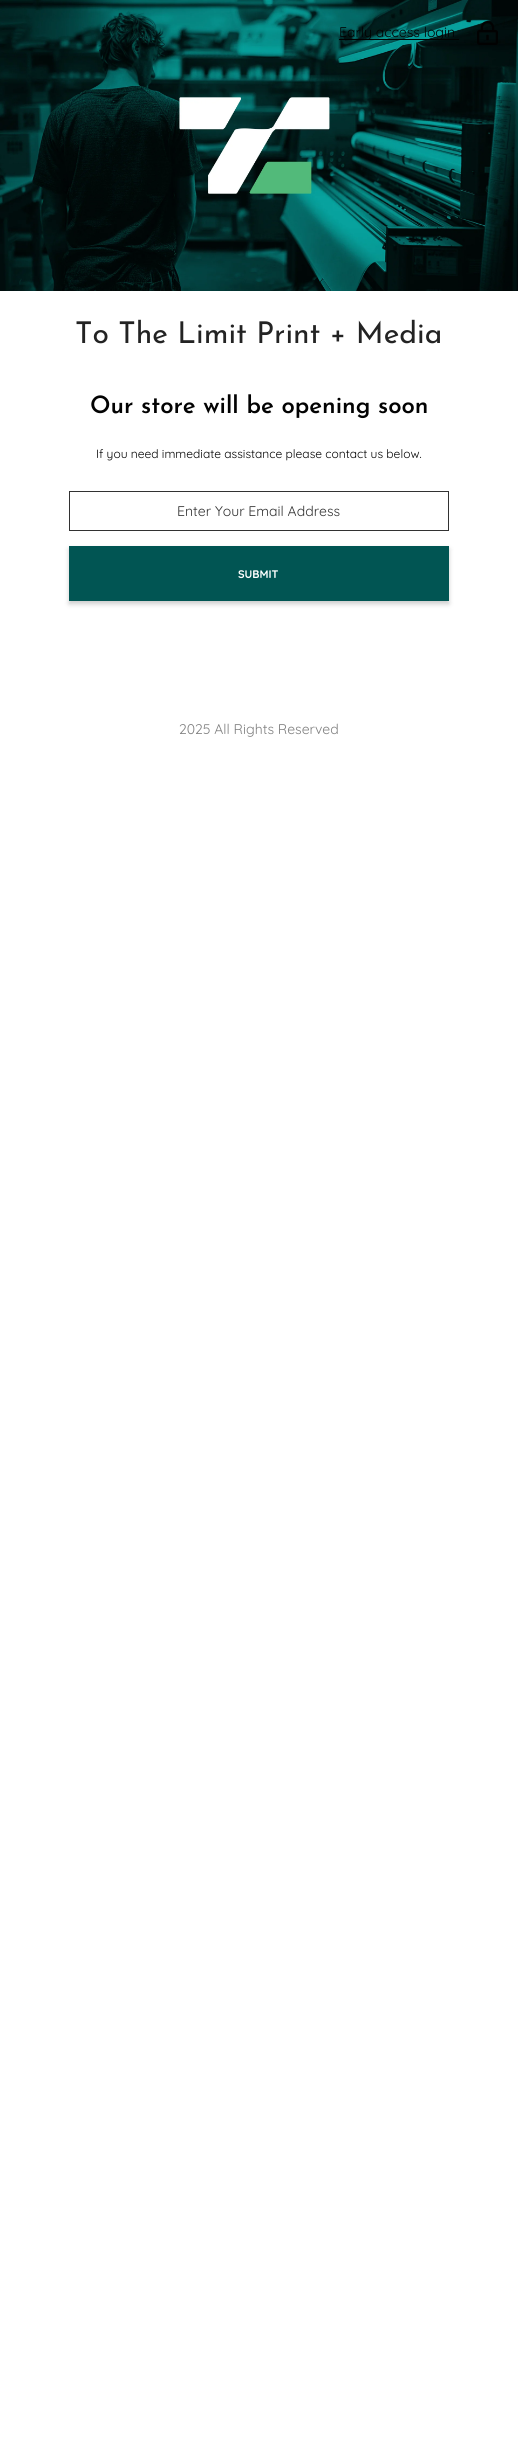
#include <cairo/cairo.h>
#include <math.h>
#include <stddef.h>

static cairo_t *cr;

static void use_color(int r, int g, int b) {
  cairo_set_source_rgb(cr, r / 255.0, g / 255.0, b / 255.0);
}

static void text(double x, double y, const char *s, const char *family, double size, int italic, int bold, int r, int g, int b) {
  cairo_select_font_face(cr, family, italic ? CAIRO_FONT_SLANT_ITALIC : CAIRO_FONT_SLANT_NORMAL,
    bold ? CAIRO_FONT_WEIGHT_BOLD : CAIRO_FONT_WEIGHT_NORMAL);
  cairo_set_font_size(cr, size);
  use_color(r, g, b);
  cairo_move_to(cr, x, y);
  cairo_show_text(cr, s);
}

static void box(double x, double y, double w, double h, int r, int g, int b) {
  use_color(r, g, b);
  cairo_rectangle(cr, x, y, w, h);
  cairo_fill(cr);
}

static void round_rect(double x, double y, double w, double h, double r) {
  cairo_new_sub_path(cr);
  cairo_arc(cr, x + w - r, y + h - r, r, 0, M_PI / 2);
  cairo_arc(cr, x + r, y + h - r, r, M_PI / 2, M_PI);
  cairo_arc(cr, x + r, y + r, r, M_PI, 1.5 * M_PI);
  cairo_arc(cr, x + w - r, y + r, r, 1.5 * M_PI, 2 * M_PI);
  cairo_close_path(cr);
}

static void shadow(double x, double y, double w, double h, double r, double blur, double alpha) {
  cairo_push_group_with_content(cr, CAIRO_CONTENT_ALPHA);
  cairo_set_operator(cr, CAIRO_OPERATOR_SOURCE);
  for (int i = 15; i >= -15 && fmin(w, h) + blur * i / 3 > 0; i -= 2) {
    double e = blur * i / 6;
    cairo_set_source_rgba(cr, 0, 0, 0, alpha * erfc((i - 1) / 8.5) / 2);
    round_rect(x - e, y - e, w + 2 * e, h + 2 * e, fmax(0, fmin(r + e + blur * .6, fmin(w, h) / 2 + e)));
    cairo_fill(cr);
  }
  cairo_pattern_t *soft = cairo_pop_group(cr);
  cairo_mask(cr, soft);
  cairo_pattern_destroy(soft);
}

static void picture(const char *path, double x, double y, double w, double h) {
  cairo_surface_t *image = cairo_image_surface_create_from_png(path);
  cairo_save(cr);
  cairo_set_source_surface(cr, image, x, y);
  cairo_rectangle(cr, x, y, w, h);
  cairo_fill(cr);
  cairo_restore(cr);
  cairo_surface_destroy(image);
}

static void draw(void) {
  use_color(255, 255, 255);
  cairo_paint(cr);
  picture("img_01.png", 0, 0, 518, 291);
  box(339, 39, 120, 1, 2, 2, 2);
  picture("img_02.png", 477, 21, 21, 24);
  cairo_rectangle(cr, 69.5, 491.5, 379, 39);
  use_color(50, 50, 50);
  cairo_set_line_width(cr, 1);
  cairo_stroke(cr);
  use_color(0, 0, 0);
  shadow(69, 549, 380, 55, 0, 2.5, 0.2);
  box(69, 546, 380, 55, 1, 85, 83);
  text(339, 37, "Early access login", "Quicksand", 14, 0, 0, 2, 2, 2);
  text(75, 343, "To The Limit Print + Media", "Josefin Sans", 30, 0, 0, 35, 35, 35);
  text(90, 413, "Our store will be opening soon", "Josefin Sans SemiBold", 24, 0, 0, 2, 2, 2);
  text(96, 458, "If you need immediate assistance please contact us below.", "Quicksand", 12, 0, 0, 2, 2, 2);
  text(177, 516, "Enter Your Email Address", "Quicksand", 14, 0, 0, 50, 50, 50);
  text(238, 578, "SUBMIT", "Quicksand", 11, 0, 1, 255, 255, 255);
  text(179, 734, "2025 All Rights Reserved", "Quicksand", 14, 0, 0, 126, 126, 126);
}

int main(void) {
  cairo_surface_t *surface = cairo_image_surface_create(CAIRO_FORMAT_RGB24, 518, 2446);
  cr = cairo_create(surface);
  cairo_font_options_t *options = cairo_font_options_create();
  cairo_font_options_set_hint_metrics(options, CAIRO_HINT_METRICS_OFF);
  cairo_font_options_set_hint_style(options, CAIRO_HINT_STYLE_NONE);
  cairo_set_font_options(cr, options);
  cairo_set_miter_limit(cr, 4);
  draw();
  cairo_surface_write_to_png(surface, "out.png");
  cairo_font_options_destroy(options);
  cairo_destroy(cr);
  cairo_surface_destroy(surface);
  return 0;
}
